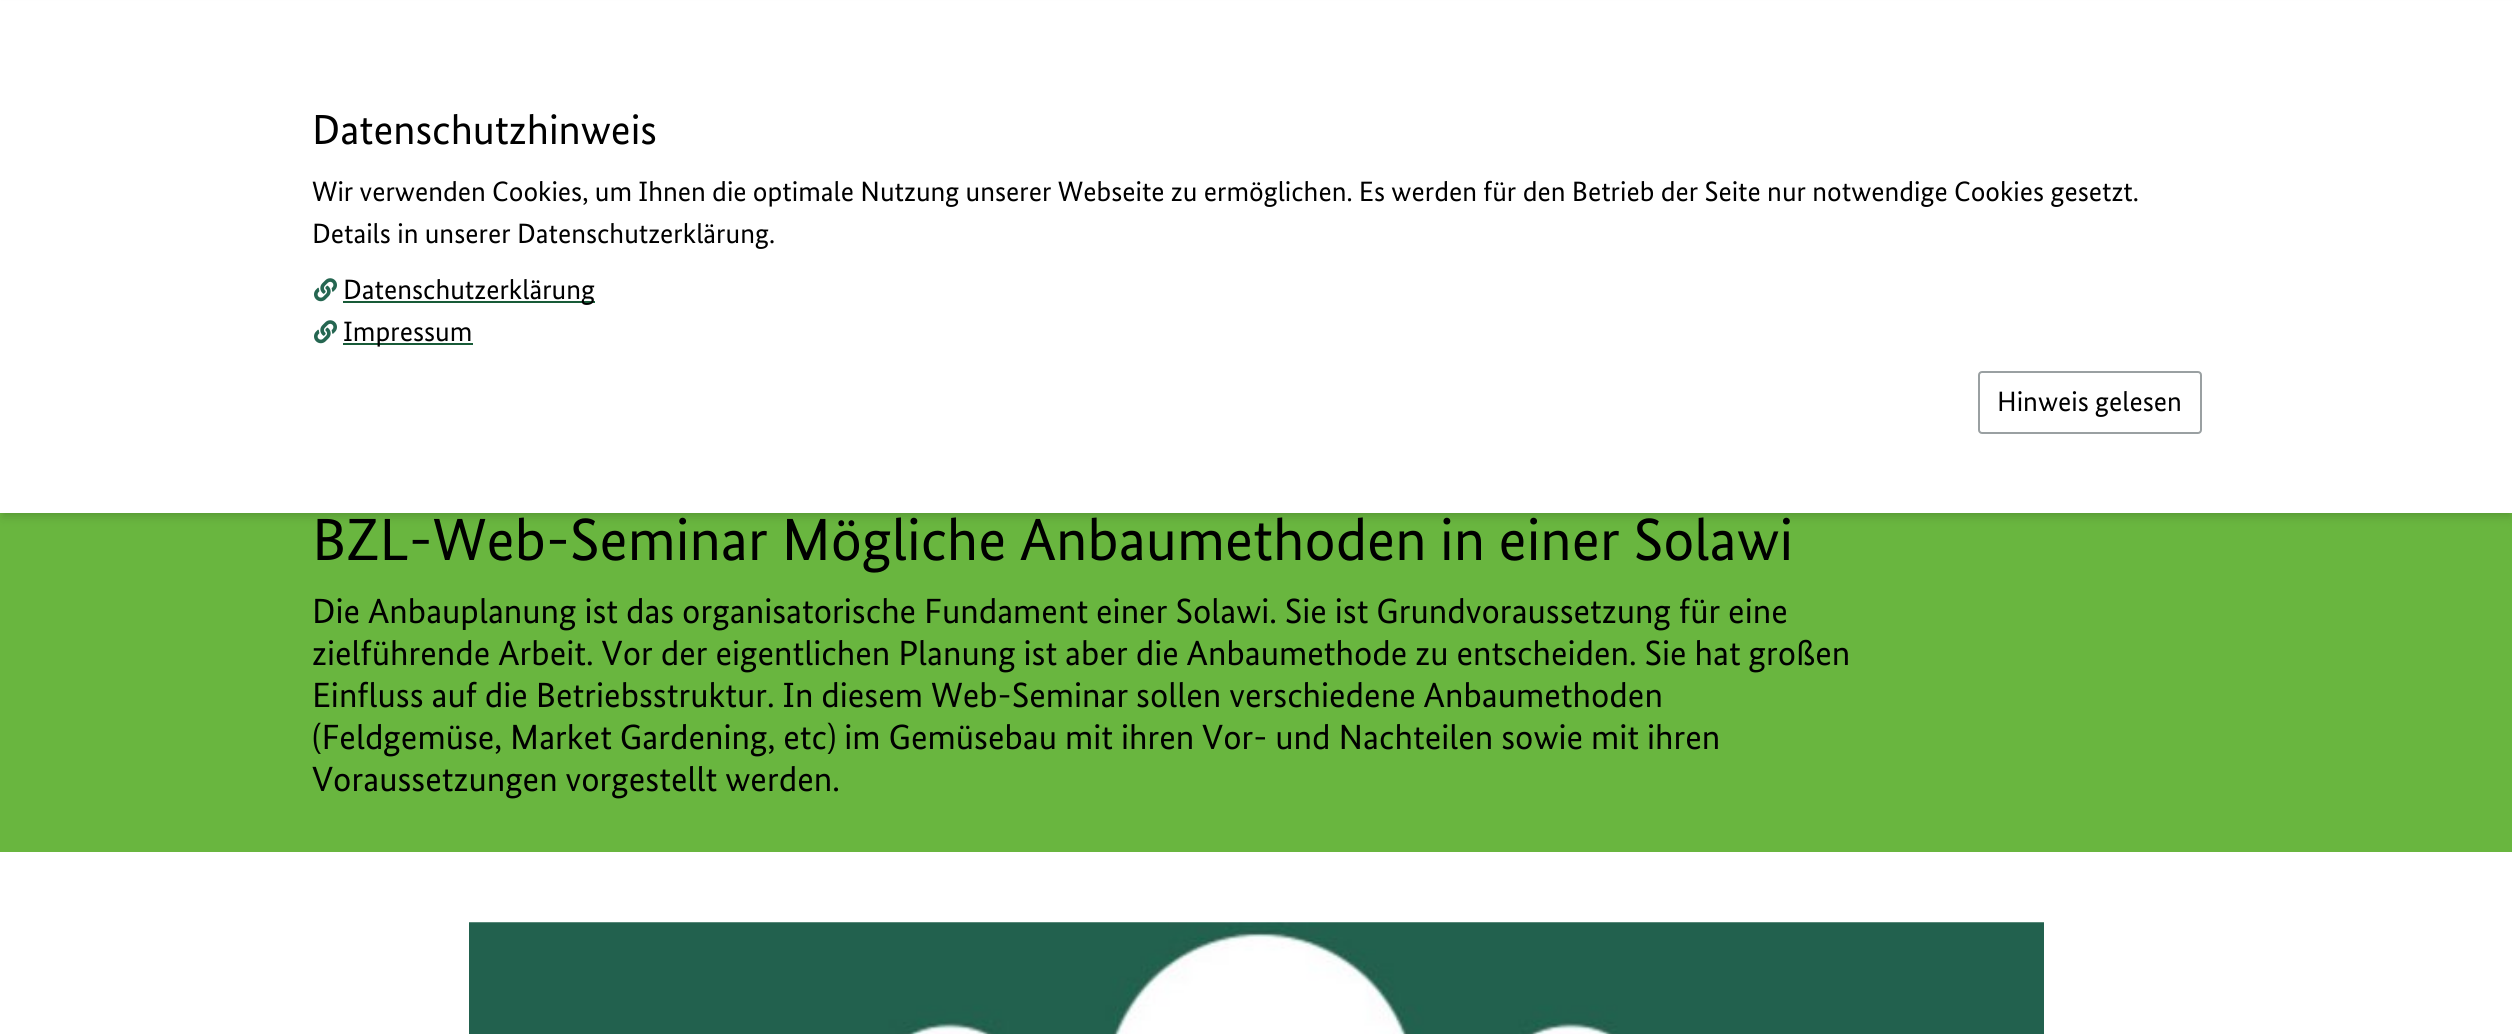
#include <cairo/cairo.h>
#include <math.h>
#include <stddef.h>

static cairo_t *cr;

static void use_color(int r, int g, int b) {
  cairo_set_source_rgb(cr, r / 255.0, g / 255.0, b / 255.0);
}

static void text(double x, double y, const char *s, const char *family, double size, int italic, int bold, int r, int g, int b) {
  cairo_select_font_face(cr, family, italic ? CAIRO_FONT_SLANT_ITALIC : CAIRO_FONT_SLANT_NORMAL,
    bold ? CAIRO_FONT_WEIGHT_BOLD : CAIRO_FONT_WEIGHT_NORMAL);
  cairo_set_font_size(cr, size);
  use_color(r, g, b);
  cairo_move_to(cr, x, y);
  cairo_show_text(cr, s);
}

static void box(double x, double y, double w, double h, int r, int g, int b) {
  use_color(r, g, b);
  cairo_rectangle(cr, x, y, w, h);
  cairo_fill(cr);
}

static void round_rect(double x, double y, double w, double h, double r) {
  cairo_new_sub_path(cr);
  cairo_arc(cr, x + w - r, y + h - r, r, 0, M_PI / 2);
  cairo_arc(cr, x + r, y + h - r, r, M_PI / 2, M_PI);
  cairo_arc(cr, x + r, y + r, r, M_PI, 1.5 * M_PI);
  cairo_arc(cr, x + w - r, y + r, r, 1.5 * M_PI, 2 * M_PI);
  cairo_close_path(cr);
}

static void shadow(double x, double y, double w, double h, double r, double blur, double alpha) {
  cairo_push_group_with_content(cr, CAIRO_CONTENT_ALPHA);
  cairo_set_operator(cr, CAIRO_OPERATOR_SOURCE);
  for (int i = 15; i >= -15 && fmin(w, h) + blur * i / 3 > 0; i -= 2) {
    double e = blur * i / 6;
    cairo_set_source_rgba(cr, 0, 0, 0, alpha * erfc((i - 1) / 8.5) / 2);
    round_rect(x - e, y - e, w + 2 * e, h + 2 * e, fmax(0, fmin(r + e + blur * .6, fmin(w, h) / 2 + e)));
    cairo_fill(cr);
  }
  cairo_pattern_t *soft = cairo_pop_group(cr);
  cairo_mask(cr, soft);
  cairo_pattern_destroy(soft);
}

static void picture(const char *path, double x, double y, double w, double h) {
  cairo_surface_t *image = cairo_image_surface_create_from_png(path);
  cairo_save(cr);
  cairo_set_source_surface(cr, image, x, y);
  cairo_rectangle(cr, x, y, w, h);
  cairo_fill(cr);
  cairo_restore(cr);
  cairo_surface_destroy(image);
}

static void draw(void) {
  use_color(255, 255, 255);
  cairo_paint(cr);
  box(0, 513, 2512, 339, 105, 182, 63);
  use_color(0, 0, 0);
  shadow(4, 7, 2506, 506, 0, 3.5, 0.1);
  shadow(2, 9, 2509, 509, 0, 5, 0.1);
  box(0, 1, 2512, 512, 255, 255, 255);
  picture("img_01.png", 314, 278, 23, 24);
  box(343, 301, 252, 2, 24, 91, 56);
  picture("img_01.png", 314, 320, 23, 24);
  box(343, 343, 130, 2, 24, 91, 56);
  round_rect(1979, 372, 222, 61, 3);
  use_color(154, 160, 162);
  cairo_stroke(cr);
  picture("img_02.png", 469, 922, 1575, 112);
  text(312, 144, "Datenschutzhinweis", "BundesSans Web", 42, 0, 0, 0, 0, 0);
  text(312, 201, "Wir verwenden Cookies, um Ihnen die optimale Nutzung unserer Webseite zu ermöglichen. Es werden für den Betrieb der Seite nur notwendige Cookies gesetzt.", "BundesSans Web", 28, 0, 0, 0, 0, 0);
  text(312, 243, "Details in unserer Datenschutzerklärung.", "BundesSans Web", 28, 0, 0, 0, 0, 0);
  text(343, 299, "Datenschutzerklärung", "BundesSans Web", 28, 0, 0, 0, 0, 0);
  text(343, 341, "Impressum", "BundesSans Web", 28, 0, 0, 0, 0, 0);
  text(1997, 411, "Hinweis gelesen", "BundesSans Web", 28, 0, 0, 0, 0, 0);
  text(312, 560, "BZL-Web-Seminar Mögliche Anbaumethoden in einer Solawi", "BundesSans Web", 59.5, 0, 0, 0, 0, 0);
  text(312, 623, "Die Anbauplanung ist das organisatorische Fundament einer Solawi. Sie ist Grundvoraussetzung für eine", "BundesSans Web", 35, 0, 0, 0, 0, 0);
  text(312, 665, "zielführende Arbeit. Vor der eigentlichen Planung ist aber die Anbaumethode zu entscheiden. Sie hat großen", "BundesSans Web", 35, 0, 0, 0, 0, 0);
  text(312, 707, "Einfluss auf die Betriebsstruktur. In diesem Web-Seminar sollen verschiedene Anbaumethoden", "BundesSans Web", 35, 0, 0, 0, 0, 0);
  text(312, 749, "(Feldgemüse, Market Gardening, etc) im Gemüsebau mit ihren Vor- und Nachteilen sowie mit ihren", "BundesSans Web", 35, 0, 0, 0, 0, 0);
  text(312, 791, "Voraussetzungen vorgestellt werden.", "BundesSans Web", 35, 0, 0, 0, 0, 0);
}

int main(void) {
  cairo_surface_t *surface = cairo_image_surface_create(CAIRO_FORMAT_RGB24, 2512, 1034);
  cr = cairo_create(surface);
  cairo_font_options_t *options = cairo_font_options_create();
  cairo_font_options_set_hint_metrics(options, CAIRO_HINT_METRICS_OFF);
  cairo_font_options_set_hint_style(options, CAIRO_HINT_STYLE_NONE);
  cairo_set_font_options(cr, options);
  cairo_set_miter_limit(cr, 4);
  draw();
  cairo_surface_write_to_png(surface, "out.png");
  cairo_font_options_destroy(options);
  cairo_destroy(cr);
  cairo_surface_destroy(surface);
  return 0;
}
